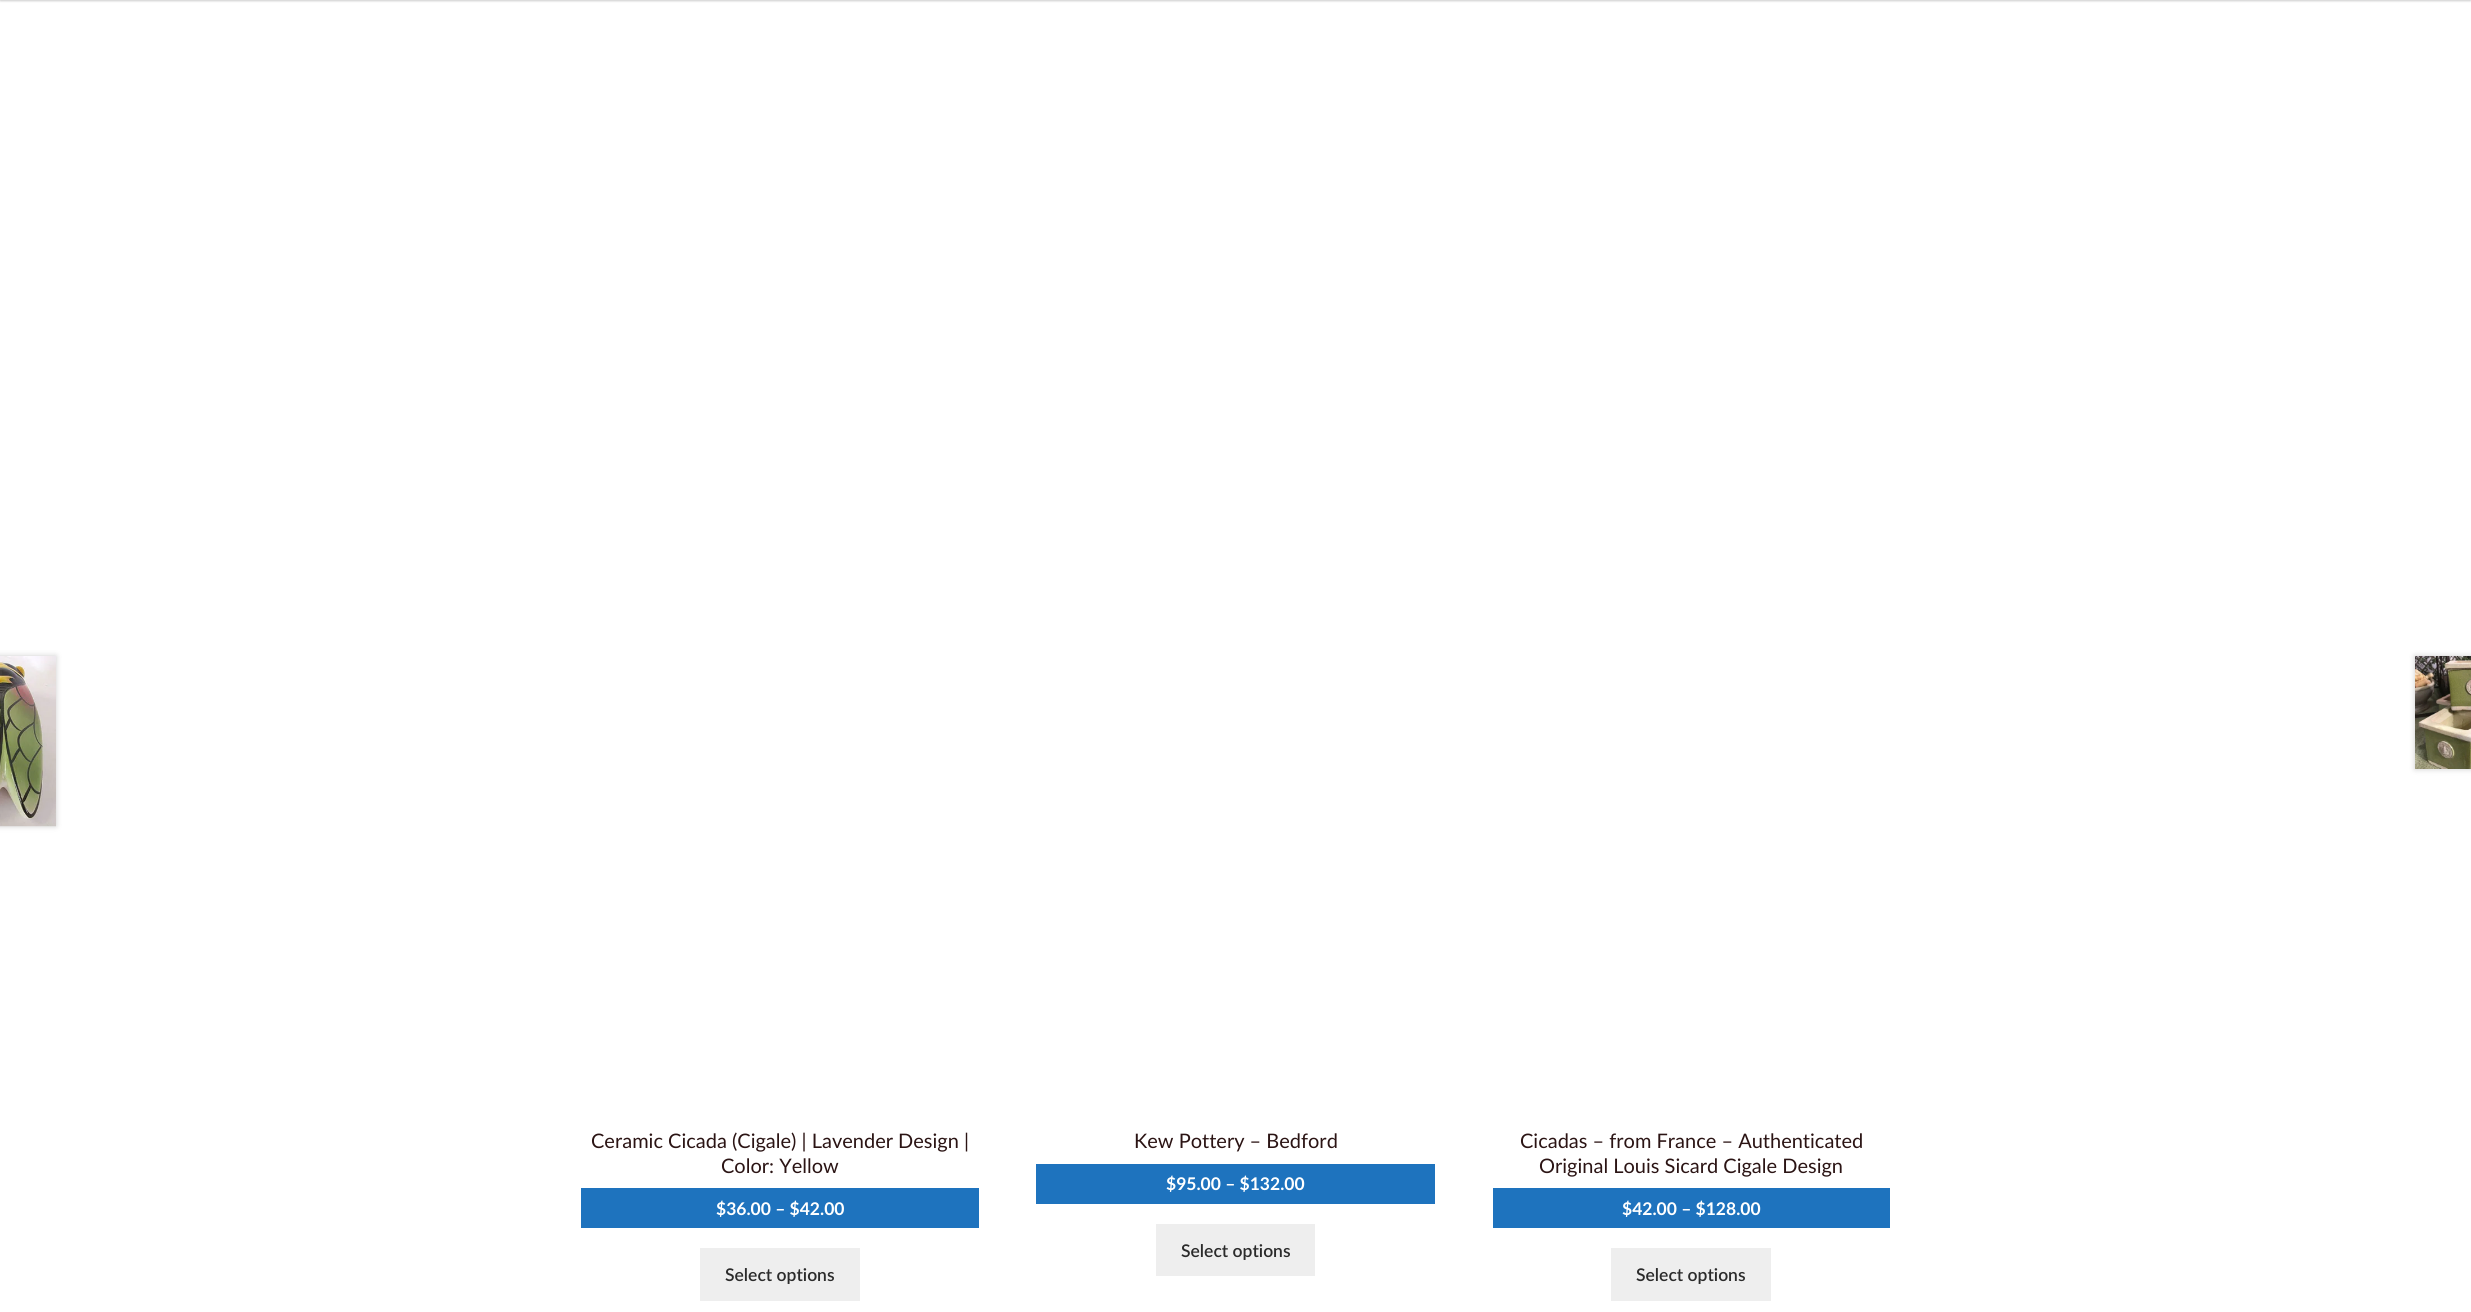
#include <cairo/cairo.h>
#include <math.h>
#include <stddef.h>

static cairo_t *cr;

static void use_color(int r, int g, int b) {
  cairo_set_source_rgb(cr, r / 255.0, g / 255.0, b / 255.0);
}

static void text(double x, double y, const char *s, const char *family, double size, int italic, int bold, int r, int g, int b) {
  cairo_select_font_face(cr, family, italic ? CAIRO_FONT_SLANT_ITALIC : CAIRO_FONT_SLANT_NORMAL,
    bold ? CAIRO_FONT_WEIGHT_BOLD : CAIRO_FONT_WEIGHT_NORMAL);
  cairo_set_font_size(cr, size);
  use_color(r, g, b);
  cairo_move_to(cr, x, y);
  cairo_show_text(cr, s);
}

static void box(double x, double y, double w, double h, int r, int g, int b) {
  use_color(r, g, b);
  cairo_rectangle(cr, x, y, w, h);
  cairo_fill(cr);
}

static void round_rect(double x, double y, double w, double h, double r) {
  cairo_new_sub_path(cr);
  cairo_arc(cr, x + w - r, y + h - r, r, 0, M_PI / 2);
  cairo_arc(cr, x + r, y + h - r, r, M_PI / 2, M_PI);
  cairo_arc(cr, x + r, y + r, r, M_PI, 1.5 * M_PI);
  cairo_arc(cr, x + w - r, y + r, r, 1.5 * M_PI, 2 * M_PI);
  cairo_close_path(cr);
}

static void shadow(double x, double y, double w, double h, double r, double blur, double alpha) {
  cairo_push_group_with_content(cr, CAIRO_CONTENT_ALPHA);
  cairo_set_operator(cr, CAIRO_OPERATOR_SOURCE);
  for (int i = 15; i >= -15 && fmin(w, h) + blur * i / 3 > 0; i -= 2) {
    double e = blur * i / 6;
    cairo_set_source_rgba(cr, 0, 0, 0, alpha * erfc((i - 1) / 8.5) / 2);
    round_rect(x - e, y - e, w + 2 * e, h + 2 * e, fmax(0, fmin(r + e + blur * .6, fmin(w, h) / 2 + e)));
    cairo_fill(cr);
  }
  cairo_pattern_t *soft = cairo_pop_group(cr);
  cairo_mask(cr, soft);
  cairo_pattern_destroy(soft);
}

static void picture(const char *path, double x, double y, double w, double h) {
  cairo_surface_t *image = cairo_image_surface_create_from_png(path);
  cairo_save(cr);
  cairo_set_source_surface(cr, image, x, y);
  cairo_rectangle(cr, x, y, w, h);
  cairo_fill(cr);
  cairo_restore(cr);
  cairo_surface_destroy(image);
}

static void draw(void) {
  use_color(255, 255, 255);
  cairo_paint(cr);
  use_color(0, 0, 0);
  shadow(0, -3, 2471, 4, 0, 1, 0.2);
  shadow(-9, 656, 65, 170, 0, 3, 0.2);
  picture("img_01.png", 0, 656, 56, 171);
  shadow(2415, 656, 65, 113, 0, 3, 0.2);
  picture("img_02.png", 2415, 656, 56, 113);
  box(581, 1188, 398, 40, 30, 115, 190);
  box(700, 1248, 160, 53, 238, 238, 238);
  box(1036, 1164, 399, 40, 30, 115, 190);
  box(1156, 1224, 159, 52, 238, 238, 238);
  box(1493, 1188, 397, 40, 30, 115, 190);
  box(1611, 1248, 160, 53, 238, 238, 238);
  text(591, 1148, "Ceramic Cicada (Cigale) | Lavender Design |", "Lato", 20, 0, 0, 43, 20, 20);
  text(721, 1173, "Color: Yellow", "Lato", 20, 0, 0, 43, 20, 20);
  text(716, 1215, "$36.00 – $42.00", "Lato", 17.5, 0, 1, 255, 255, 255);
  text(725, 1281, "Select options", "Lato SemiBold", 17.5, 0, 0, 43, 43, 43);
  text(1134, 1148, "Kew Pottery – Bedford", "Lato", 20, 0, 0, 43, 20, 20);
  text(1166, 1190, "$95.00 – $132.00", "Lato", 17.5, 0, 1, 255, 255, 255);
  text(1181, 1257, "Select options", "Lato SemiBold", 17.5, 0, 0, 43, 43, 43);
  text(1520, 1148, "Cicadas – from France – Authenticated", "Lato", 20, 0, 0, 43, 20, 20);
  text(1539, 1173, "Original Louis Sicard Cigale Design", "Lato", 20, 0, 0, 43, 20, 20);
  text(1622, 1215, "$42.00 – $128.00", "Lato", 17.5, 0, 1, 255, 255, 255);
  text(1636, 1281, "Select options", "Lato SemiBold", 17.5, 0, 0, 43, 43, 43);
}

int main(void) {
  cairo_surface_t *surface = cairo_image_surface_create(CAIRO_FORMAT_RGB24, 2471, 1312);
  cr = cairo_create(surface);
  cairo_font_options_t *options = cairo_font_options_create();
  cairo_font_options_set_hint_metrics(options, CAIRO_HINT_METRICS_OFF);
  cairo_font_options_set_hint_style(options, CAIRO_HINT_STYLE_NONE);
  cairo_set_font_options(cr, options);
  cairo_set_miter_limit(cr, 4);
  draw();
  cairo_surface_write_to_png(surface, "out.png");
  cairo_font_options_destroy(options);
  cairo_destroy(cr);
  cairo_surface_destroy(surface);
  return 0;
}
